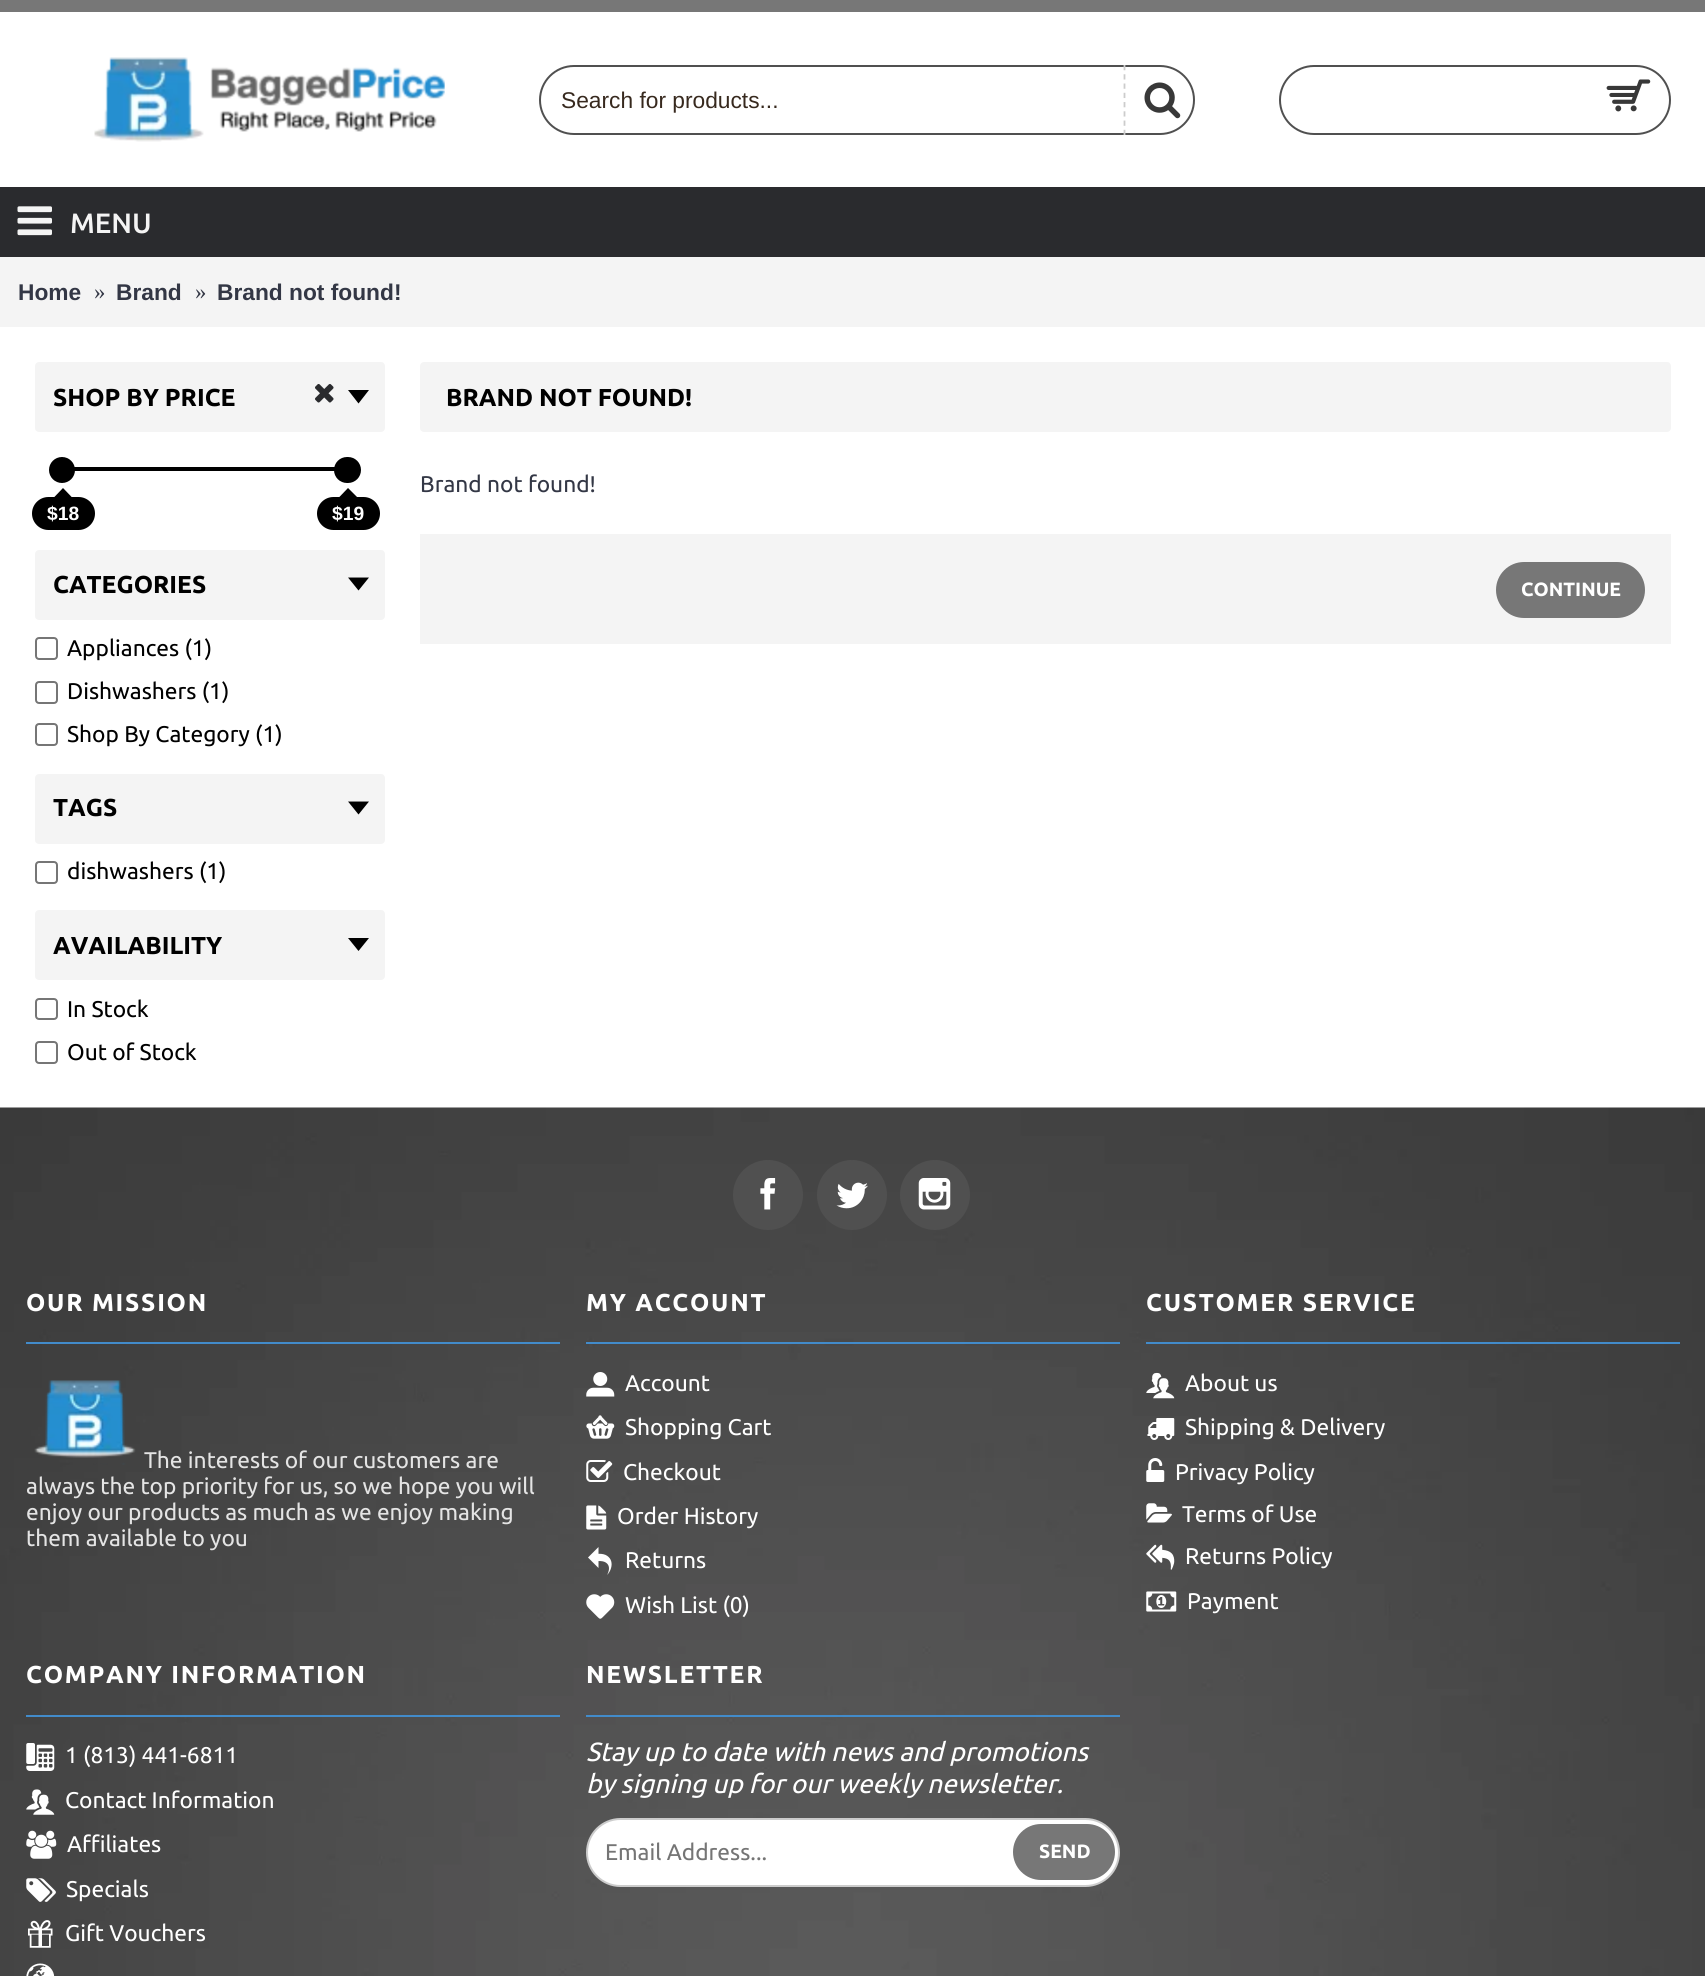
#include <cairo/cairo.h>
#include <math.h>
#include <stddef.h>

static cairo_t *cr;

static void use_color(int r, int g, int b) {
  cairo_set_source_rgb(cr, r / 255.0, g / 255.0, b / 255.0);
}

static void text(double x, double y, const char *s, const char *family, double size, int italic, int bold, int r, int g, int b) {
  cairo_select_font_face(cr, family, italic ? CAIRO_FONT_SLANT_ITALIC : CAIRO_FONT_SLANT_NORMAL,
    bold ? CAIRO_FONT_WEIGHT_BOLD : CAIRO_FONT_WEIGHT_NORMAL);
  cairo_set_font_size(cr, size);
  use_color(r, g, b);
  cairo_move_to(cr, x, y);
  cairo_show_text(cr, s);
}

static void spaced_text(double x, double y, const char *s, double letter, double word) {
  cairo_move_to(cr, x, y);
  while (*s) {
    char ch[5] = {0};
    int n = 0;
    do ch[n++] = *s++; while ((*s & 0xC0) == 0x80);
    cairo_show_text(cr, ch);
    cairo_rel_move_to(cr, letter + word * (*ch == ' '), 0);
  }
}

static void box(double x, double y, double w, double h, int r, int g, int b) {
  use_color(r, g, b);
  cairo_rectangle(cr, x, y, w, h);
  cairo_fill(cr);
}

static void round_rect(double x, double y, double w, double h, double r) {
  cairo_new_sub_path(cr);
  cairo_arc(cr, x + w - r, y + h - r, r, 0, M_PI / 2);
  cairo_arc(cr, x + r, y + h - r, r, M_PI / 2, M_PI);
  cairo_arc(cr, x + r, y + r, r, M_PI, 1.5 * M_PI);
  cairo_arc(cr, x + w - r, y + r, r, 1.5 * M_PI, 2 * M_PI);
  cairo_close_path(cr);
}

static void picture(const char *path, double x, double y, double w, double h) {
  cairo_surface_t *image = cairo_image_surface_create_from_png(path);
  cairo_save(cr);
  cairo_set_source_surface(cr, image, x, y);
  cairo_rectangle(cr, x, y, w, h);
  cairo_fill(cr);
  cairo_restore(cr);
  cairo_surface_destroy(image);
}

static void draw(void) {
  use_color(255, 255, 255);
  cairo_paint(cr);
  box(0, 0, 1705, 12, 119, 119, 119);
  picture("img_01.png", 94, 57, 351, 85);
  round_rect(540, 66, 654, 68, 34);
  use_color(80, 80, 80);
  cairo_stroke(cr);
  cairo_new_path(cr);
  cairo_move_to(cr, 1124.5, 65);
  cairo_line_to(cr, 1124.5, 135);
  use_color(204, 204, 204);
  cairo_set_line_width(cr, 1.8);
  cairo_set_dash(cr, (double[]){5.25, 4.01}, 2, 0);
  cairo_stroke(cr);
  picture("img_02.png", 1144, 82, 37, 37);
  round_rect(1280, 66, 390, 68, 34);
  use_color(80, 80, 80);
  cairo_set_line_width(cr, 2);
  cairo_set_dash(cr, NULL, 0, 0);
  cairo_stroke(cr);
  picture("img_03.png", 1606, 79, 45, 33);
  box(0, 187, 1705, 70, 42, 43, 46);
  picture("img_04.png", 17, 206, 35, 30);
  box(0, 257, 1705, 70, 244, 244, 244);
  round_rect(35, 362, 350, 70, 4);
  cairo_fill(cr);
  picture("img_05.png", 315, 384, 19, 19);
  use_color(0, 0, 0);
  cairo_new_path(cr);
  cairo_move_to(cr, 369, 390);
  cairo_line_to(cr, 348, 390);
  cairo_line_to(cr, 358.5, 403.5);
  cairo_close_path(cr);
  cairo_fill(cr);
  box(74, 467, 261, 4, 0, 0, 0);
  cairo_arc(cr, 62, 470, 13, 0, 2 * M_PI);
  cairo_fill(cr);
  round_rect(32, 497, 63, 33, 16.5);
  cairo_fill(cr);
  cairo_new_path(cr);
  cairo_move_to(cr, 75, 500.5);
  cairo_line_to(cr, 51, 500.5);
  cairo_line_to(cr, 63, 488);
  cairo_close_path(cr);
  cairo_fill(cr);
  round_rect(334, 457, 27, 26, 13);
  cairo_fill(cr);
  round_rect(317, 497, 63, 33, 16.5);
  cairo_fill(cr);
  cairo_new_path(cr);
  cairo_move_to(cr, 360.5, 500.5);
  cairo_line_to(cr, 336, 500.5);
  cairo_line_to(cr, 348, 488);
  cairo_close_path(cr);
  cairo_fill(cr);
  use_color(244, 244, 244);
  round_rect(35, 550, 350, 70, 4);
  cairo_fill(cr);
  use_color(0, 0, 0);
  cairo_new_path(cr);
  cairo_move_to(cr, 369, 577.5);
  cairo_line_to(cr, 348, 577.5);
  cairo_line_to(cr, 358.5, 590.5);
  cairo_close_path(cr);
  cairo_fill(cr);
  round_rect(36, 638, 21, 21, 3);
  use_color(118, 118, 118);
  cairo_stroke(cr);
  round_rect(36, 682, 21, 21, 3);
  cairo_stroke(cr);
  round_rect(36, 724, 21, 21, 3);
  cairo_stroke(cr);
  use_color(244, 244, 244);
  round_rect(35, 774, 350, 70, 4);
  cairo_fill(cr);
  use_color(0, 0, 0);
  cairo_new_path(cr);
  cairo_move_to(cr, 369, 801.5);
  cairo_line_to(cr, 348, 801.5);
  cairo_line_to(cr, 358.5, 814.5);
  cairo_close_path(cr);
  cairo_fill(cr);
  round_rect(36, 862, 21, 21, 3);
  use_color(118, 118, 118);
  cairo_stroke(cr);
  use_color(244, 244, 244);
  round_rect(35, 910, 350, 70, 4);
  cairo_fill(cr);
  use_color(0, 0, 0);
  cairo_new_path(cr);
  cairo_move_to(cr, 369, 938);
  cairo_line_to(cr, 348, 938);
  cairo_line_to(cr, 358.5, 951);
  cairo_close_path(cr);
  cairo_fill(cr);
  round_rect(36, 999, 21, 20, 3);
  use_color(118, 118, 118);
  cairo_stroke(cr);
  round_rect(36, 1042, 21, 21, 3);
  cairo_stroke(cr);
  use_color(244, 244, 244);
  round_rect(420, 362, 1251, 70, 4);
  cairo_fill(cr);
  box(420, 534, 1251, 110, 244, 244, 244);
  use_color(119, 119, 119);
  round_rect(1496, 562, 149, 56, 28);
  cairo_fill(cr);
  picture("img_06.png", 0, 1107, 1705, 869);
  use_color(80, 80, 80);
  cairo_arc(cr, 768, 1195, 35, 0, 2 * M_PI);
  cairo_fill(cr);
  picture("img_07.png", 760, 1178, 16, 32);
  cairo_arc(cr, 852, 1195, 35, 0, 2 * M_PI);
  cairo_fill(cr);
  picture("img_08.png", 836, 1182, 32, 27);
  cairo_arc(cr, 935, 1195, 35, 0, 2 * M_PI);
  cairo_fill(cr);
  picture("img_09.png", 918, 1178, 33, 32);
  box(26, 1342, 534, 2, 66, 139, 202);
  picture("img_10.png", 34, 1380, 102, 85);
  box(586, 1342, 534, 2, 66, 139, 202);
  picture("img_11.png", 586, 1372, 29, 25);
  picture("img_12.png", 586, 1415, 29, 24);
  picture("img_13.png", 586, 1460, 27, 22);
  picture("img_14.png", 586, 1505, 21, 25);
  picture("img_15.png", 588, 1547, 24, 28);
  picture("img_16.png", 586, 1594, 29, 25);
  box(1146, 1342, 534, 2, 66, 139, 202);
  picture("img_17.png", 1146, 1372, 29, 27);
  picture("img_18.png", 1147, 1418, 28, 22);
  picture("img_19.png", 1146, 1458, 19, 24);
  picture("img_20.png", 1146, 1503, 26, 20);
  picture("img_21.png", 1146, 1544, 29, 26);
  picture("img_22.png", 1146, 1591, 31, 21);
  box(26, 1715, 534, 2, 66, 139, 202);
  picture("img_23.png", 26, 1743, 29, 28);
  picture("img_24.png", 26, 1789, 29, 26);
  picture("img_25.png", 26, 1830, 31, 29);
  picture("img_26.png", 26, 1878, 30, 24);
  picture("img_27.png", 28, 1920, 25, 28);
  picture("img_28.png", 26, 1963, 29, 13);
  box(586, 1715, 534, 2, 66, 139, 202);
  use_color(255, 255, 255);
  round_rect(587, 1819, 532, 67, 33.5);
  cairo_fill_preserve(cr);
  use_color(204, 204, 204);
  cairo_stroke(cr);
  use_color(119, 119, 119);
  round_rect(1013, 1824, 102, 56, 28);
  cairo_fill(cr);
  text(561, 108, "Search for products...", "Liberation Sans", 22.75, 0, 0, 55, 41, 30);
  text(70, 233, "MENU", "Ubuntu Medium", 28, 0, 0, 244, 244, 244);
  text(18, 300, "Home", "Liberation Sans", 22.75, 0, 1, 51, 55, 69);
  text(94, 299, "»", "Liberation Serif", 22.75, 0, 0, 51, 55, 69);
  text(116, 300, "Brand", "Liberation Sans", 22.75, 0, 1, 51, 55, 69);
  text(195, 299, "»", "Liberation Serif", 22.75, 0, 0, 51, 55, 69);
  text(217, 300, "Brand not found!", "Liberation Sans", 22.75, 0, 1, 51, 55, 69);
  text(53, 406, "SHOP BY PRICE", "Ubuntu", 24.5, 0, 1, 0, 0, 0);
  text(47, 520, "$18", "Liberation Sans", 19.25, 0, 1, 255, 255, 255);
  text(332, 520, "$19", "Liberation Sans", 19.25, 0, 1, 255, 255, 255);
  text(53, 593, "CATEGORIES", "Ubuntu", 24.5, 0, 1, 0, 0, 0);
  text(67, 656, "Appliances (1)", "Ubuntu", 22.75, 0, 0, 0, 0, 0);
  text(67, 699, "Dishwashers (1)", "Ubuntu", 22.75, 0, 0, 0, 0, 0);
  text(67, 742, "Shop By Category (1)", "Ubuntu", 22.75, 0, 0, 0, 0, 0);
  text(53, 816, "TAGS", "Ubuntu", 24.5, 0, 1, 0, 0, 0);
  text(67, 879, "dishwashers (1)", "Ubuntu", 22.75, 0, 0, 0, 0, 0);
  text(53, 954, "AVAILABILITY", "Ubuntu", 24.5, 0, 1, 0, 0, 0);
  text(67, 1017, "In Stock", "Ubuntu", 22.75, 0, 0, 0, 0, 0);
  text(67, 1060, "Out of Stock", "Ubuntu", 22.75, 0, 0, 0, 0, 0);
  text(446, 406, "BRAND NOT FOUND!", "Ubuntu", 24.5, 0, 1, 0, 0, 0);
  text(420, 492, "Brand not found!", "Ubuntu", 22.75, 0, 0, 51, 55, 69);
  text(1521, 596, "CONTINUE", "Ubuntu", 19.25, 0, 1, 255, 255, 255);
  cairo_set_font_size(cr, 24.5);
  spaced_text(26, 1311, "OUR MISSION", 1.75, 0);
  text(144, 1468, "The interests of our customers are", "Ubuntu", 22.75, 0, 0, 228, 228, 228);
  text(26, 1494, "always the top priority for us, so we hope you will", "Ubuntu", 22.75, 0, 0, 228, 228, 228);
  text(26, 1520, "enjoy our products as much as we enjoy making", "Ubuntu", 22.75, 0, 0, 228, 228, 228);
  text(26, 1546, "them available to you", "Ubuntu", 22.75, 0, 0, 228, 228, 228);
  cairo_select_font_face(cr, "Ubuntu", CAIRO_FONT_SLANT_NORMAL, CAIRO_FONT_WEIGHT_BOLD);
  cairo_set_font_size(cr, 24.5);
  use_color(255, 255, 255);
  spaced_text(586, 1311, "MY ACCOUNT", 1.75, 0);
  text(625, 1391, "Account", "Ubuntu", 22.75, 0, 0, 255, 255, 255);
  text(625, 1435, "Shopping Cart", "Ubuntu", 22.75, 0, 0, 255, 255, 255);
  text(623, 1480, "Checkout", "Ubuntu", 22.75, 0, 0, 255, 255, 255);
  text(617, 1524, "Order History", "Ubuntu", 22.75, 0, 0, 255, 255, 255);
  text(625, 1568, "Returns", "Ubuntu", 22.75, 0, 0, 255, 255, 255);
  text(625, 1613, "Wish List (0)", "Ubuntu", 22.75, 0, 0, 255, 255, 255);
  cairo_select_font_face(cr, "Ubuntu", CAIRO_FONT_SLANT_NORMAL, CAIRO_FONT_WEIGHT_BOLD);
  cairo_set_font_size(cr, 24.5);
  spaced_text(1146, 1311, "CUSTOMER SERVICE", 1.75, 0);
  text(1185, 1391, "About us", "Ubuntu", 22.75, 0, 0, 255, 255, 255);
  text(1185, 1435, "Shipping & Delivery", "Ubuntu", 22.75, 0, 0, 255, 255, 255);
  text(1175, 1480, "Privacy Policy", "Ubuntu", 22.75, 0, 0, 255, 255, 255);
  text(1182, 1522, "Terms of Use", "Ubuntu", 22.75, 0, 0, 255, 255, 255);
  text(1185, 1564, "Returns Policy", "Ubuntu", 22.75, 0, 0, 255, 255, 255);
  text(1187, 1609, "Payment", "Ubuntu", 22.75, 0, 0, 255, 255, 255);
  cairo_select_font_face(cr, "Ubuntu", CAIRO_FONT_SLANT_NORMAL, CAIRO_FONT_WEIGHT_BOLD);
  cairo_set_font_size(cr, 24.5);
  spaced_text(26, 1683, "COMPANY INFORMATION", 1.75, 0);
  text(65, 1763, "1 (813) 441-6811", "Ubuntu", 22.75, 0, 0, 255, 255, 255);
  text(65, 1808, "Contact Information", "Ubuntu", 22.75, 0, 0, 255, 255, 255);
  text(67, 1852, "Affiliates", "Ubuntu", 22.75, 0, 0, 255, 255, 255);
  text(66, 1897, "Specials", "Ubuntu", 22.75, 0, 0, 255, 255, 255);
  text(65, 1941, "Gift Vouchers", "Ubuntu", 22.75, 0, 0, 255, 255, 255);
  cairo_select_font_face(cr, "Ubuntu", CAIRO_FONT_SLANT_NORMAL, CAIRO_FONT_WEIGHT_BOLD);
  cairo_set_font_size(cr, 24.5);
  spaced_text(586, 1683, "NEWSLETTER", 1.75, 0);
  text(586, 1761, "Stay up to date with news and promotions", "Ubuntu", 26.25, 1, 0, 255, 255, 255);
  text(586, 1793, "by signing up for our weekly newsletter.", "Ubuntu", 26.25, 1, 0, 255, 255, 255);
  text(605, 1860, "Email Address...", "Ubuntu", 22.75, 0, 0, 117, 117, 117);
  text(1039, 1858, "SEND", "Ubuntu", 19.25, 0, 1, 255, 255, 255);
}

int main(void) {
  cairo_surface_t *surface = cairo_image_surface_create(CAIRO_FORMAT_RGB24, 1705, 1976);
  cr = cairo_create(surface);
  cairo_font_options_t *options = cairo_font_options_create();
  cairo_font_options_set_hint_metrics(options, CAIRO_HINT_METRICS_OFF);
  cairo_font_options_set_hint_style(options, CAIRO_HINT_STYLE_NONE);
  cairo_set_font_options(cr, options);
  cairo_set_miter_limit(cr, 4);
  draw();
  cairo_surface_write_to_png(surface, "out.png");
  cairo_font_options_destroy(options);
  cairo_destroy(cr);
  cairo_surface_destroy(surface);
  return 0;
}
